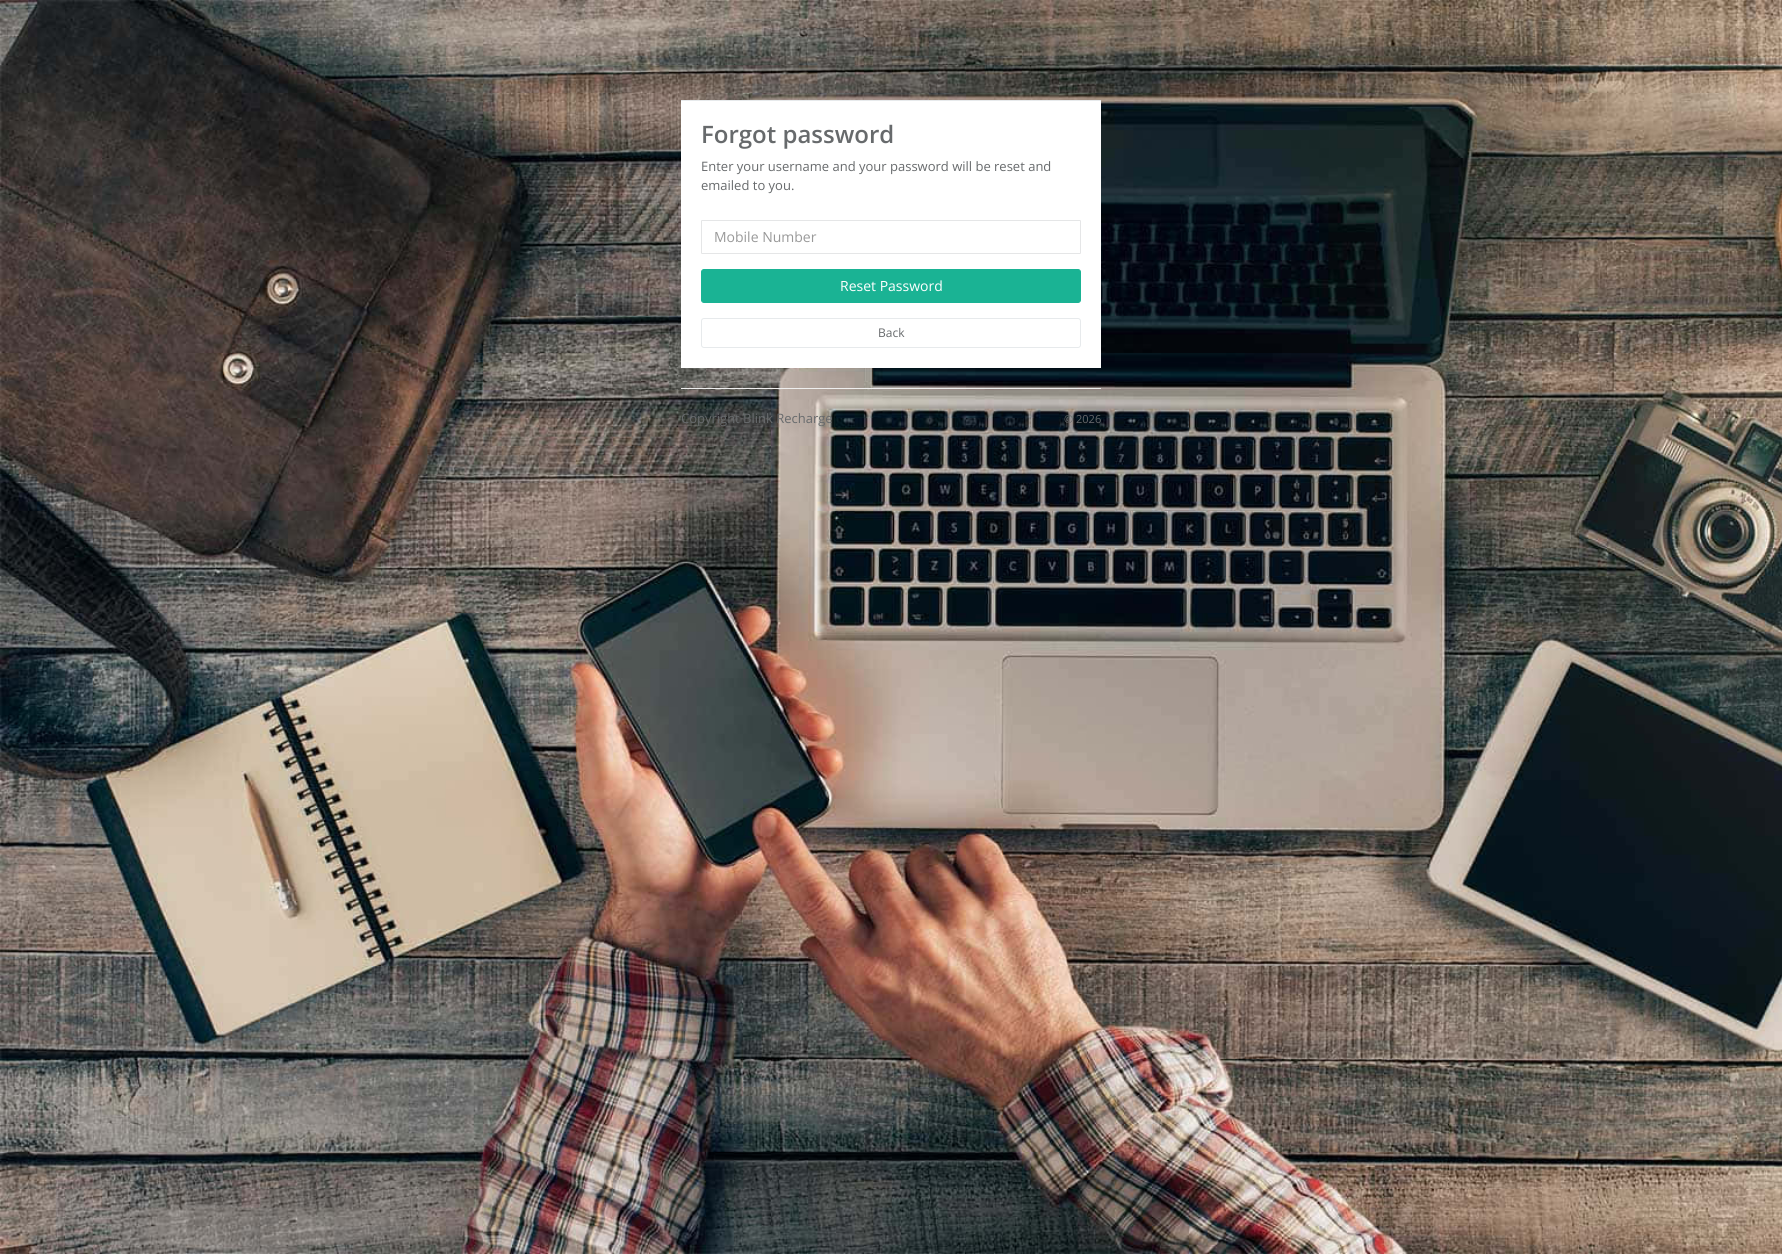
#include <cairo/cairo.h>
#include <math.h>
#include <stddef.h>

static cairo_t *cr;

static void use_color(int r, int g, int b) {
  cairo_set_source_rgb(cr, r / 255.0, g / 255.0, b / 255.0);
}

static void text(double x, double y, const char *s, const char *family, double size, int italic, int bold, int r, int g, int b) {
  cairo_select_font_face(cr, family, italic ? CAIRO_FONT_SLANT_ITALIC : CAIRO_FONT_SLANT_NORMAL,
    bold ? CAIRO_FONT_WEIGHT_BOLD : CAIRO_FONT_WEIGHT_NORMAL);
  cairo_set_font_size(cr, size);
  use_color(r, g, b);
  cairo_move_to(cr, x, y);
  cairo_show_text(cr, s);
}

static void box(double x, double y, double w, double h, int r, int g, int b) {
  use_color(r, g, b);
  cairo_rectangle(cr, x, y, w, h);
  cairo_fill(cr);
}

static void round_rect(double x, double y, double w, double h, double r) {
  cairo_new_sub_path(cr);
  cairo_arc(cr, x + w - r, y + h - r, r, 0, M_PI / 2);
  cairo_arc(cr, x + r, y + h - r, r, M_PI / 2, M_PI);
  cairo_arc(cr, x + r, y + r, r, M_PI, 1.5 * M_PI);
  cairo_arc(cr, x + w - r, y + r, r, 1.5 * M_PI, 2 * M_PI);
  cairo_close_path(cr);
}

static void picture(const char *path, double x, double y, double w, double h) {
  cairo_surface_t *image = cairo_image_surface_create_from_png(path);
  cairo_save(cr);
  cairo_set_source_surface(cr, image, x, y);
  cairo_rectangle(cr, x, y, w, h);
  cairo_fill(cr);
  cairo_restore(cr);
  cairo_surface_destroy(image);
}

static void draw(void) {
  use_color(255, 255, 255);
  cairo_paint(cr);
  picture("img_01.png", 0, 0, 1782, 1254);
  box(681, 101, 420, 267, 255, 255, 255);
  box(681, 100, 420, 1, 231, 234, 236);
  round_rect(701.5, 220.5, 379, 33, 0.5);
  use_color(229, 230, 231);
  cairo_set_line_width(cr, 1);
  cairo_stroke(cr);
  use_color(26, 179, 148);
  round_rect(701.5, 269.5, 379, 33, 2.5);
  cairo_fill_preserve(cr);
  cairo_stroke(cr);
  round_rect(701.5, 318.5, 379, 29, 2.5);
  use_color(231, 234, 236);
  cairo_stroke(cr);
  box(681, 388, 420, 1, 238, 238, 238);
  text(701, 143, "Forgot password", "Open Sans SemiBold", 24, 0, 0, 103, 106, 108);
  text(701, 171, "Enter your username and your password will be reset and", "Open Sans", 13, 0, 0, 103, 106, 108);
  text(701, 190, "emailed to you.", "Open Sans", 13, 0, 0, 103, 106, 108);
  text(714, 242, "Mobile Number", "Open Sans", 14, 0, 0, 153, 153, 153);
  text(840, 291, "Reset Password", "Open Sans", 14, 0, 0, 255, 255, 255);
  text(878, 337, "Back", "Open Sans", 12, 0, 0, 103, 106, 108);
  text(681, 423, "Copyright Blink Recharge", "Open Sans", 13, 0, 0, 103, 106, 108);
  text(1064, 423, "© 2026", "Open Sans", 11, 0, 0, 103, 106, 108);
}

int main(void) {
  cairo_surface_t *surface = cairo_image_surface_create(CAIRO_FORMAT_RGB24, 1782, 1254);
  cr = cairo_create(surface);
  cairo_font_options_t *options = cairo_font_options_create();
  cairo_font_options_set_hint_metrics(options, CAIRO_HINT_METRICS_OFF);
  cairo_font_options_set_hint_style(options, CAIRO_HINT_STYLE_NONE);
  cairo_set_font_options(cr, options);
  cairo_set_miter_limit(cr, 4);
  draw();
  cairo_surface_write_to_png(surface, "out.png");
  cairo_font_options_destroy(options);
  cairo_destroy(cr);
  cairo_surface_destroy(surface);
  return 0;
}
